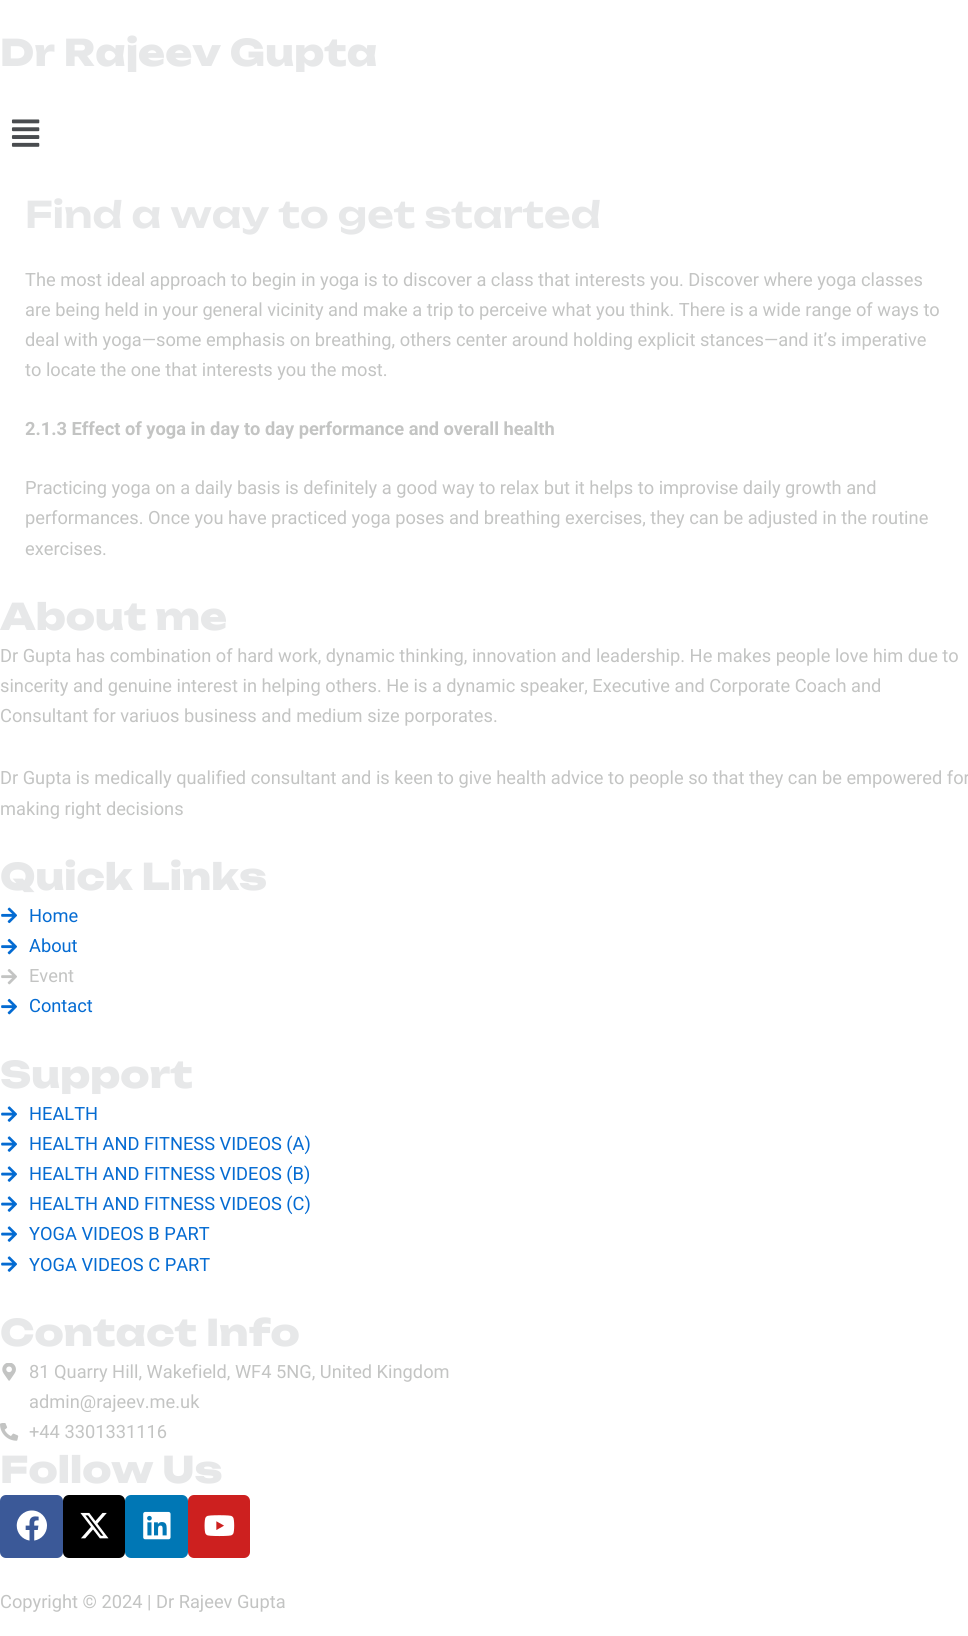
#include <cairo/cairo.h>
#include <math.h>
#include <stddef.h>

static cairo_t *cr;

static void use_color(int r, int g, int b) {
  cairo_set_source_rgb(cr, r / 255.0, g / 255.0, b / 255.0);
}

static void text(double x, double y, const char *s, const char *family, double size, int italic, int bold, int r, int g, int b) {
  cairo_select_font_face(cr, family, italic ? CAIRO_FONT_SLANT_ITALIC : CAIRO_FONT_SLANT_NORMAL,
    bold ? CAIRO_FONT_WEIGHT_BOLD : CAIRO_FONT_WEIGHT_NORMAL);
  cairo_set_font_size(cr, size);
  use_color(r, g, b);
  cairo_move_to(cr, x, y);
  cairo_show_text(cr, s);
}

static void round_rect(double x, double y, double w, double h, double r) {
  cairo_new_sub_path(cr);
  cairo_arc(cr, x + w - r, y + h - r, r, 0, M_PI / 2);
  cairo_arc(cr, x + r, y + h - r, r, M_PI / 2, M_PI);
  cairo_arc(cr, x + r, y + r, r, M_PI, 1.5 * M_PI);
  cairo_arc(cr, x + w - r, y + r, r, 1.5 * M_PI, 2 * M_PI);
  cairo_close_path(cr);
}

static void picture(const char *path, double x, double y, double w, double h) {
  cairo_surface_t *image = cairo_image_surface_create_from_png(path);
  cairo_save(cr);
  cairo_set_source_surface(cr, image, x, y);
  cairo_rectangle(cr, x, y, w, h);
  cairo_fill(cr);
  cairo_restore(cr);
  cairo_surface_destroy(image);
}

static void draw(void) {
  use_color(255, 255, 255);
  cairo_paint(cr);
  picture("img_01.png", 11, 119, 29, 28);
  picture("img_02.png", 1, 907, 16, 17);
  picture("img_03.png", 1, 938, 16, 17);
  picture("img_04.png", 1, 969, 16, 16);
  picture("img_03.png", 1, 998, 16, 17);
  picture("img_05.png", 1, 1106, 16, 16);
  picture("img_05.png", 1, 1136, 16, 16);
  picture("img_05.png", 1, 1166, 16, 16);
  picture("img_05.png", 1, 1196, 16, 16);
  picture("img_05.png", 1, 1226, 16, 16);
  picture("img_05.png", 1, 1256, 16, 16);
  picture("img_06.png", 2, 1363, 14, 18);
  picture("img_07.png", 0, 1423, 19, 18);
  use_color(59, 89, 152);
  round_rect(0, 1495, 63, 63, 6);
  cairo_fill(cr);
  picture("img_08.png", 16, 1510, 31, 31);
  use_color(0, 0, 0);
  round_rect(63, 1495, 62, 63, 6);
  cairo_fill(cr);
  picture("img_09.png", 80, 1512, 29, 27);
  use_color(0, 119, 181);
  round_rect(125, 1495, 63, 63, 6);
  cairo_fill(cr);
  picture("img_10.png", 143, 1511, 28, 29);
  use_color(205, 32, 31);
  round_rect(188, 1495, 62, 63, 6);
  cairo_fill(cr);
  picture("img_11.png", 204, 1515, 31, 22);
  text(0, 66, "Dr Rajeev Gupta", "Unbounded ExtraBold", 36.5, 0, 0, 231, 232, 233);
  text(25, 228, "Find a way to get started", "Unbounded SemiBold", 36.5, 0, 0, 231, 232, 233);
  text(25, 286, "The most ideal approach to begin in yoga is to discover a class that interests you. Discover where yoga classes", "Roboto", 18.25, 0, 0, 195, 196, 195);
  text(25, 316, "are being held in your general vicinity and make a trip to perceive what you think. There is a wide range of ways to", "Roboto", 18.25, 0, 0, 195, 196, 195);
  text(25, 346, "deal with yoga—some emphasis on breathing, others center around holding explicit stances—and it’s imperative", "Roboto", 18.25, 0, 0, 195, 196, 195);
  text(25, 376, "to locate the one that interests you the most.", "Roboto", 18.25, 0, 0, 195, 196, 195);
  text(25, 435, "2.1.3 Effect of yoga in day to day performance and overall health", "Roboto", 18.25, 0, 1, 195, 196, 195);
  text(25, 494, "Practicing yoga on a daily basis is definitely a good way to relax but it helps to improvise daily growth and", "Roboto", 18.25, 0, 0, 195, 196, 195);
  text(25, 524, "performances. Once you have practiced yoga poses and breathing exercises, they can be adjusted in the routine", "Roboto", 18.25, 0, 0, 195, 196, 195);
  text(25, 555, "exercises.", "Roboto", 18.25, 0, 0, 195, 196, 195);
  text(0, 630, "About me", "Unbounded ExtraBold", 36.5, 0, 0, 231, 232, 233);
  text(0, 662, "Dr Gupta has combination of hard work, dynamic thinking, innovation and leadership. He makes people love him due to", "Roboto", 18.25, 0, 0, 195, 196, 195);
  text(0, 692, "sincerity and genuine interest in helping others. He is a dynamic speaker, Executive and Corporate Coach and", "Roboto", 18.25, 0, 0, 195, 196, 195);
  text(0, 722, "Consultant for variuos business and medium size porporates.", "Roboto", 18.25, 0, 0, 195, 196, 195);
  text(0, 784, "Dr Gupta is medically qualified consultant and is keen to give health advice to people so that they can be empowered for", "Roboto", 18.25, 0, 0, 195, 196, 195);
  text(0, 815, "making right decisions", "Roboto", 18.25, 0, 0, 195, 196, 195);
  text(0, 890, "Quick Links", "Unbounded ExtraBold", 36.5, 0, 0, 231, 232, 233);
  text(29, 922, "Home", "Roboto", 18.25, 0, 0, 4, 107, 210);
  text(29, 952, "About", "Roboto", 18.25, 0, 0, 4, 107, 210);
  text(29, 982, "Event", "Roboto", 18.25, 0, 0, 195, 196, 195);
  text(29, 1012, "Contact", "Roboto", 18.25, 0, 0, 4, 107, 210);
  text(0, 1088, "Support", "Unbounded ExtraBold", 36.5, 0, 0, 231, 232, 233);
  text(29, 1120, "HEALTH", "Roboto", 18.25, 0, 0, 4, 107, 210);
  text(29, 1150, "HEALTH AND FITNESS VIDEOS (A)", "Roboto", 18.25, 0, 0, 4, 107, 210);
  text(29, 1180, "HEALTH AND FITNESS VIDEOS (B)", "Roboto", 18.25, 0, 0, 4, 107, 210);
  text(29, 1210, "HEALTH AND FITNESS VIDEOS (C)", "Roboto", 18.25, 0, 0, 4, 107, 210);
  text(29, 1240, "YOGA VIDEOS B PART", "Roboto", 18.25, 0, 0, 4, 107, 210);
  text(29, 1271, "YOGA VIDEOS C PART", "Roboto", 18.25, 0, 0, 4, 107, 210);
  text(0, 1346, "Contact Info", "Unbounded ExtraBold", 36.5, 0, 0, 231, 232, 233);
  text(29, 1378, "81 Quarry Hill, Wakefield, WF4 5NG, United Kingdom", "Roboto", 18.25, 0, 0, 195, 196, 195);
  text(29, 1408, "admin@rajeev.me.uk", "Roboto", 18.25, 0, 0, 195, 196, 195);
  text(29, 1438, "+44 3301331116", "Roboto", 18.25, 0, 0, 195, 196, 195);
  text(0, 1483, "Follow Us", "Unbounded ExtraBold", 36.5, 0, 0, 231, 232, 233);
  text(0, 1608, "Copyright © 2024 | Dr Rajeev Gupta", "Roboto", 18.25, 0, 0, 195, 196, 195);
}

int main(void) {
  cairo_surface_t *surface = cairo_image_surface_create(CAIRO_FORMAT_RGB24, 968, 1636);
  cr = cairo_create(surface);
  cairo_font_options_t *options = cairo_font_options_create();
  cairo_font_options_set_hint_metrics(options, CAIRO_HINT_METRICS_OFF);
  cairo_font_options_set_hint_style(options, CAIRO_HINT_STYLE_NONE);
  cairo_set_font_options(cr, options);
  cairo_set_miter_limit(cr, 4);
  draw();
  cairo_surface_write_to_png(surface, "out.png");
  cairo_font_options_destroy(options);
  cairo_destroy(cr);
  cairo_surface_destroy(surface);
  return 0;
}
